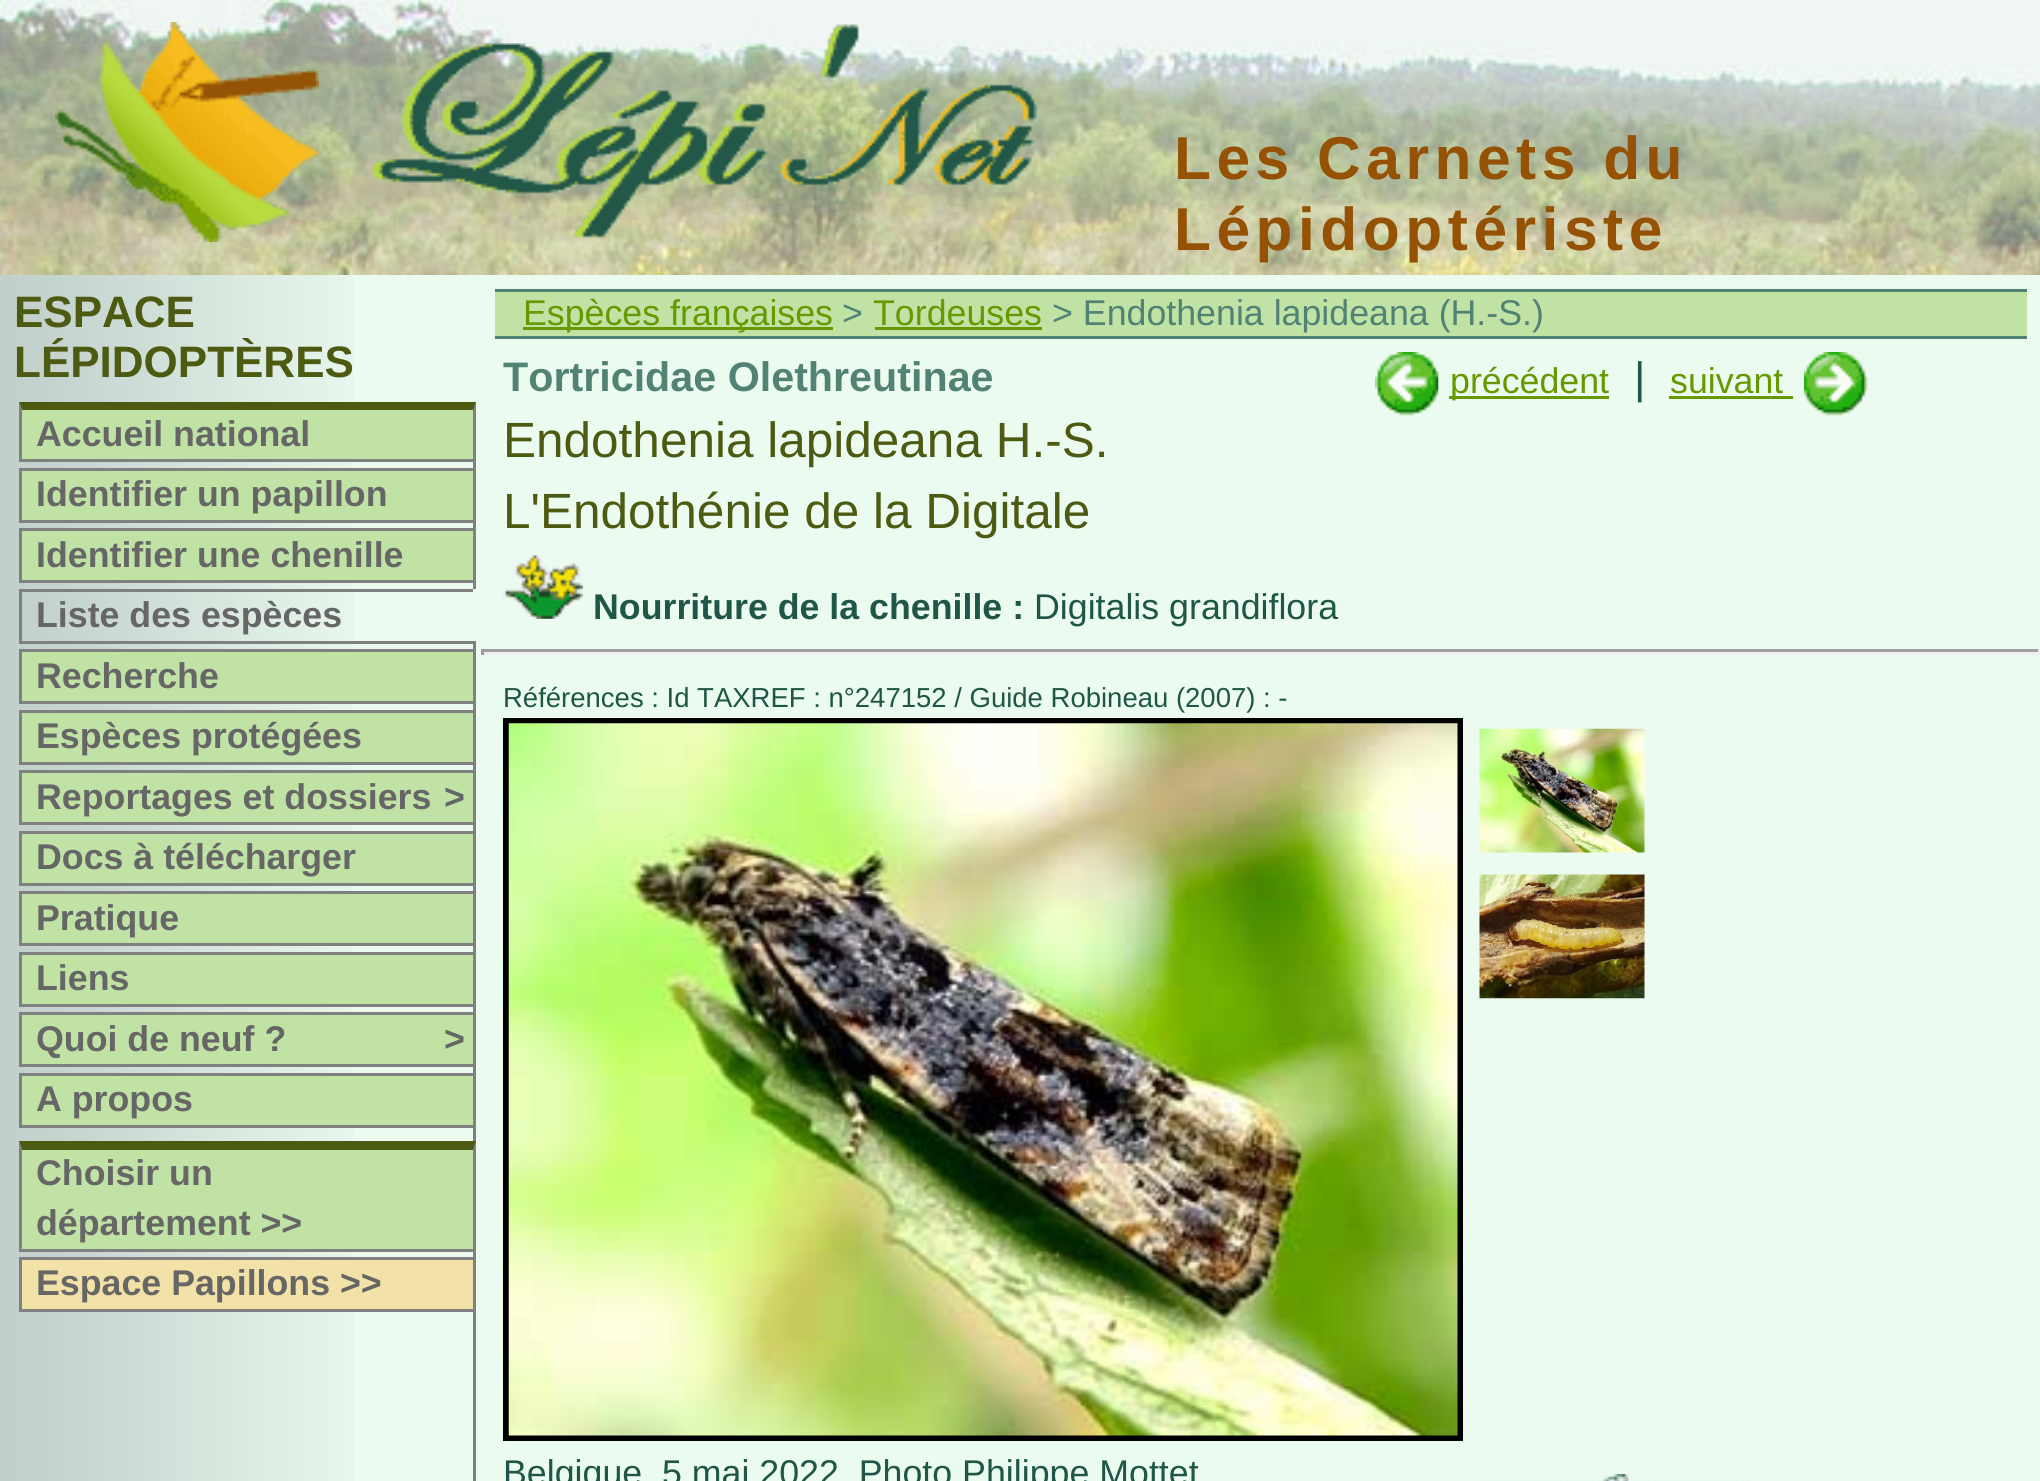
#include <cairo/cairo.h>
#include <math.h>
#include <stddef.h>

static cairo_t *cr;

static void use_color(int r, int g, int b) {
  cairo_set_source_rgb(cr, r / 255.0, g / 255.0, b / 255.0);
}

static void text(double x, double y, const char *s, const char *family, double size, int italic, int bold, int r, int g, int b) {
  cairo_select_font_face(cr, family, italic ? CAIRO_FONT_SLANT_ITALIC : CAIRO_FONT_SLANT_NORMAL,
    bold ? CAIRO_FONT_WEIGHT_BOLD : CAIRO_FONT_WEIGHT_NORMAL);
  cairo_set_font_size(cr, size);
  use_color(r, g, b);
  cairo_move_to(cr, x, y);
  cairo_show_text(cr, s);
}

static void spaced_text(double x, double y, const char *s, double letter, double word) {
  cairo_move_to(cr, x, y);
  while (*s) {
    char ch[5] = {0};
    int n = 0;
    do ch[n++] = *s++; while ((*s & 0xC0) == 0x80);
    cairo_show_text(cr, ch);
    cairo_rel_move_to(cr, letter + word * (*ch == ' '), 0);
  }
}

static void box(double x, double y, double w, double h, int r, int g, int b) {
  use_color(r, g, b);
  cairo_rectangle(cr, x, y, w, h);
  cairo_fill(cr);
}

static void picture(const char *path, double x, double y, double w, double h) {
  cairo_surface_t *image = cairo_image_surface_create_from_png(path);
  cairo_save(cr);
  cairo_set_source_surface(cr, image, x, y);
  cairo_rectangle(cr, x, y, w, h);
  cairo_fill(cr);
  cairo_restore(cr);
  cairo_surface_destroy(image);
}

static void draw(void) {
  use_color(235, 251, 240);
  cairo_paint(cr);
  picture("img_01.png", 0, 0, 2040, 275);
  picture("img_02.png", 55, 22, 264, 220);
  picture("img_03.png", 374, 24, 663, 214);
  picture("img_04.png", 0, 275, 353, 1206);
  box(473, 402, 3, 1079, 128, 128, 128);
  box(22, 410, 451, 49, 193, 226, 165);
  use_color(77, 90, 18);
  cairo_new_path(cr);
  cairo_move_to(cr, 19, 402);
  cairo_line_to(cr, 476, 402);
  cairo_line_to(cr, 473, 410);
  cairo_line_to(cr, 22, 410);
  cairo_close_path(cr);
  cairo_fill(cr);
  use_color(128, 128, 128);
  cairo_new_path(cr);
  cairo_move_to(cr, 476, 402);
  cairo_line_to(cr, 476, 462);
  cairo_line_to(cr, 473, 459);
  cairo_line_to(cr, 473, 410);
  cairo_close_path(cr);
  cairo_fill(cr);
  box(19, 459, 457, 3, 128, 128, 128);
  cairo_new_path(cr);
  cairo_move_to(cr, 19, 462);
  cairo_line_to(cr, 19, 402);
  cairo_line_to(cr, 22, 410);
  cairo_line_to(cr, 22, 459);
  cairo_close_path(cr);
  cairo_fill(cr);
  use_color(193, 226, 165);
  cairo_rectangle(cr, 20.5, 469.5, 454, 52);
  cairo_fill_preserve(cr);
  use_color(128, 128, 128);
  cairo_set_line_width(cr, 3);
  cairo_stroke(cr);
  use_color(193, 226, 165);
  cairo_rectangle(cr, 20.5, 529.5, 454, 52);
  cairo_fill_preserve(cr);
  use_color(128, 128, 128);
  cairo_stroke(cr);
  box(19, 589, 457, 3, 128, 128, 128);
  box(473, 589, 3, 55, 235, 251, 240);
  box(19, 641, 457, 3, 128, 128, 128);
  box(19, 589, 3, 55, 128, 128, 128);
  use_color(193, 226, 165);
  cairo_rectangle(cr, 20.5, 650.5, 454, 52);
  cairo_fill_preserve(cr);
  use_color(128, 128, 128);
  cairo_stroke(cr);
  use_color(193, 226, 165);
  cairo_rectangle(cr, 20.5, 711.5, 454, 52);
  cairo_fill_preserve(cr);
  use_color(128, 128, 128);
  cairo_stroke(cr);
  use_color(193, 226, 165);
  cairo_rectangle(cr, 20.5, 771.5, 454, 52);
  cairo_fill_preserve(cr);
  use_color(128, 128, 128);
  cairo_stroke(cr);
  use_color(193, 226, 165);
  cairo_rectangle(cr, 20.5, 832.5, 454, 52);
  cairo_fill_preserve(cr);
  use_color(128, 128, 128);
  cairo_stroke(cr);
  use_color(193, 226, 165);
  cairo_rectangle(cr, 20.5, 892.5, 454, 52);
  cairo_fill_preserve(cr);
  use_color(128, 128, 128);
  cairo_stroke(cr);
  use_color(193, 226, 165);
  cairo_rectangle(cr, 20.5, 953.5, 454, 52);
  cairo_fill_preserve(cr);
  use_color(128, 128, 128);
  cairo_stroke(cr);
  use_color(193, 226, 165);
  cairo_rectangle(cr, 20.5, 1013.5, 454, 52);
  cairo_fill_preserve(cr);
  use_color(128, 128, 128);
  cairo_stroke(cr);
  use_color(193, 226, 165);
  cairo_rectangle(cr, 20.5, 1074.5, 454, 52);
  cairo_fill_preserve(cr);
  use_color(128, 128, 128);
  cairo_stroke(cr);
  box(22, 1150, 451, 99, 193, 226, 165);
  use_color(77, 90, 18);
  cairo_new_path(cr);
  cairo_move_to(cr, 19, 1141);
  cairo_line_to(cr, 476, 1141);
  cairo_line_to(cr, 473, 1150);
  cairo_line_to(cr, 22, 1150);
  cairo_close_path(cr);
  cairo_fill(cr);
  use_color(128, 128, 128);
  cairo_new_path(cr);
  cairo_move_to(cr, 476, 1141);
  cairo_line_to(cr, 476, 1251);
  cairo_line_to(cr, 473, 1248);
  cairo_line_to(cr, 473, 1150);
  cairo_close_path(cr);
  cairo_fill(cr);
  box(19, 1249, 457, 3, 128, 128, 128);
  cairo_new_path(cr);
  cairo_move_to(cr, 19, 1251);
  cairo_line_to(cr, 19, 1141);
  cairo_line_to(cr, 22, 1150);
  cairo_line_to(cr, 22, 1248);
  cairo_close_path(cr);
  cairo_fill(cr);
  use_color(243, 226, 167);
  cairo_rectangle(cr, 20.5, 1258.5, 454, 52);
  cairo_fill_preserve(cr);
  use_color(128, 128, 128);
  cairo_stroke(cr);
  box(495, 292, 1532, 44, 193, 226, 165);
  box(495, 289, 1532, 3, 81, 130, 116);
  box(495, 336, 1532, 3, 81, 130, 116);
  box(523, 327, 310, 3, 102, 153, 0);
  box(875, 327, 167, 3, 102, 153, 0);
  picture("img_05.png", 503, 555, 80, 64);
  picture("img_06.png", 1375, 352, 64, 64);
  box(1449, 396, 160, 3, 102, 153, 0);
  box(1669, 396, 124, 3, 102, 153, 0);
  picture("img_07.png", 1804, 352, 64, 64);
  box(481, 649, 1559, 3, 159, 159, 159);
  box(2038, 649, 2, 6, 238, 238, 238);
  box(481, 652, 1559, 3, 238, 238, 238);
  box(481, 649, 3, 6, 159, 159, 159);
  picture("img_08.png", 1479, 728, 166, 125);
  picture("img_09.png", 1479, 874, 166, 125);
  cairo_rectangle(cr, 506, 721, 954, 717);
  use_color(0, 0, 0);
  cairo_set_line_width(cr, 6);
  cairo_stroke(cr);
  picture("img_10.png", 508, 723, 950, 713);
  picture("img_11.png", 1478, 1474, 271, 7);
  cairo_select_font_face(cr, "Liberation Sans", CAIRO_FONT_SLANT_NORMAL, CAIRO_FONT_WEIGHT_BOLD);
  cairo_set_font_size(cr, 60.5);
  use_color(149, 82, 4);
  spaced_text(1174, 179, "Les Carnets du", 5.5, 0);
  spaced_text(1174, 250, "Lépidoptériste", 5.5, 0);
  text(14, 327, "ESPACE", "Liberation Sans", 44, 0, 1, 77, 90, 18);
  text(14, 377, "LÉPIDOPTÈRES", "Liberation Sans", 44, 0, 1, 77, 90, 18);
  text(36, 446, "Accueil national", "Liberation Sans", 35.75, 0, 1, 102, 102, 102);
  text(36, 506, "Identifier un papillon", "Liberation Sans", 35.75, 0, 1, 102, 102, 102);
  text(36, 567, "Identifier une chenille", "Liberation Sans", 35.75, 0, 1, 102, 102, 102);
  text(36, 627, "Liste des espèces", "Liberation Sans", 35.75, 0, 1, 102, 102, 102);
  text(36, 688, "Recherche", "Liberation Sans", 35.75, 0, 1, 102, 102, 102);
  text(36, 748, "Espèces protégées", "Liberation Sans", 35.75, 0, 1, 102, 102, 102);
  text(36, 809, "Reportages et dossiers", "Liberation Sans", 35.75, 0, 1, 102, 102, 102);
  text(444, 809, ">", "Liberation Sans", 35.75, 0, 1, 102, 102, 102);
  text(36, 869, "Docs à télécharger", "Liberation Sans", 35.75, 0, 1, 102, 102, 102);
  text(36, 930, "Pratique", "Liberation Sans", 35.75, 0, 1, 102, 102, 102);
  text(36, 990, "Liens", "Liberation Sans", 35.75, 0, 1, 102, 102, 102);
  text(36, 1051, "Quoi de neuf ?", "Liberation Sans", 35.75, 0, 1, 102, 102, 102);
  text(444, 1051, ">", "Liberation Sans", 35.75, 0, 1, 102, 102, 102);
  text(36, 1111, "A propos", "Liberation Sans", 35.75, 0, 1, 102, 102, 102);
  text(36, 1185, "Choisir un", "Liberation Sans", 35.75, 0, 1, 102, 102, 102);
  text(36, 1235, "département >>", "Liberation Sans", 35.75, 0, 1, 102, 102, 102);
  text(36, 1295, "Espace Papillons >>", "Liberation Sans", 35.75, 0, 1, 102, 102, 102);
  text(523, 325, "Espèces françaises", "Liberation Sans", 35.75, 0, 0, 102, 153, 0);
  text(842, 325, ">", "Liberation Sans", 35.75, 0, 0, 81, 130, 116);
  text(873, 325, "Tordeuses", "Liberation Sans", 35.75, 0, 0, 102, 153, 0);
  text(1052, 325, "> Endothenia lapideana (H.-S.)", "Liberation Sans", 35.75, 0, 0, 81, 130, 116);
  text(503, 391, "Tortricidae Olethreutinae", "Liberation Sans", 41.25, 0, 1, 81, 130, 116);
  text(503, 457, "Endothenia lapideana H.-S.", "Liberation Sans", 49.5, 0, 0, 77, 90, 18);
  text(503, 528, "L'Endothénie de la Digitale", "Liberation Sans", 49.5, 0, 0, 77, 90, 18);
  text(593, 619, "Nourriture de la chenille :", "Liberation Sans", 35.75, 0, 1, 31, 86, 71);
  text(1034, 619, "Digitalis grandiflora", "Liberation Sans", 35.75, 0, 0, 31, 86, 71);
  text(1450, 393, "précédent", "Liberation Sans", 35.75, 0, 0, 102, 153, 0);
  text(1634, 393, "|", "Liberation Sans", 44, 0, 0, 31, 86, 71);
  text(1670, 393, "suivant", "Liberation Sans", 35.75, 0, 0, 102, 153, 0);
  text(503, 707, "Références : Id TAXREF : n°247152 / Guide Robineau (2007) : -", "Liberation Sans", 27.5, 0, 0, 31, 86, 71);
  text(503, 1485, "Belgique, 5 mai 2022. Photo Philippe Mottet", "Liberation Sans", 35.75, 0, 0, 31, 86, 71);
}

int main(void) {
  cairo_surface_t *surface = cairo_image_surface_create(CAIRO_FORMAT_RGB24, 2040, 1481);
  cr = cairo_create(surface);
  cairo_font_options_t *options = cairo_font_options_create();
  cairo_font_options_set_hint_metrics(options, CAIRO_HINT_METRICS_OFF);
  cairo_font_options_set_hint_style(options, CAIRO_HINT_STYLE_NONE);
  cairo_set_font_options(cr, options);
  cairo_set_miter_limit(cr, 4);
  draw();
  cairo_surface_write_to_png(surface, "out.png");
  cairo_font_options_destroy(options);
  cairo_destroy(cr);
  cairo_surface_destroy(surface);
  return 0;
}
